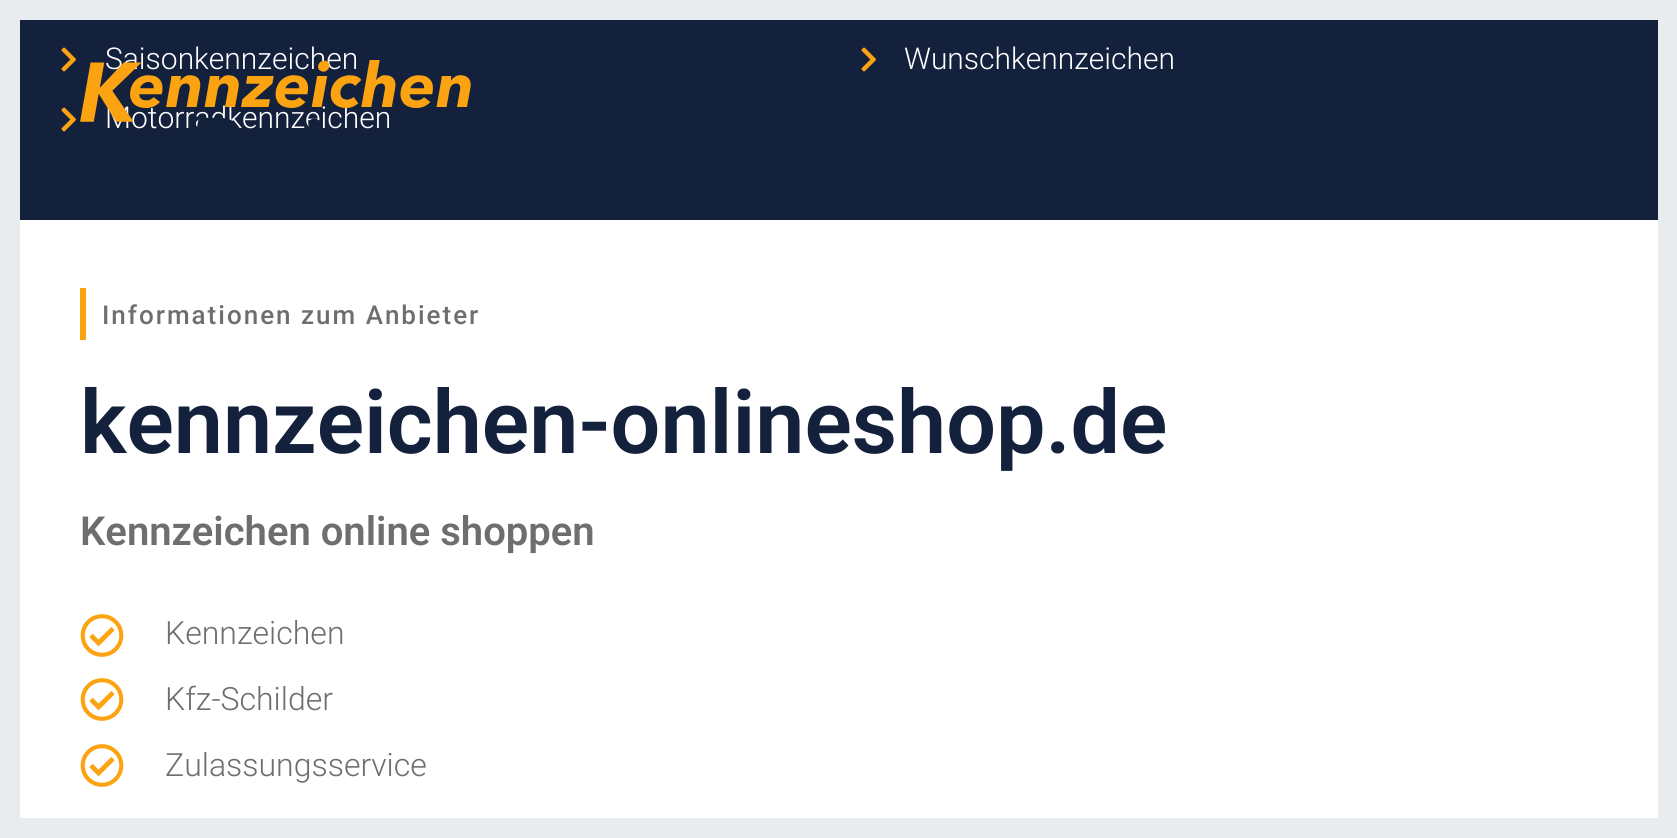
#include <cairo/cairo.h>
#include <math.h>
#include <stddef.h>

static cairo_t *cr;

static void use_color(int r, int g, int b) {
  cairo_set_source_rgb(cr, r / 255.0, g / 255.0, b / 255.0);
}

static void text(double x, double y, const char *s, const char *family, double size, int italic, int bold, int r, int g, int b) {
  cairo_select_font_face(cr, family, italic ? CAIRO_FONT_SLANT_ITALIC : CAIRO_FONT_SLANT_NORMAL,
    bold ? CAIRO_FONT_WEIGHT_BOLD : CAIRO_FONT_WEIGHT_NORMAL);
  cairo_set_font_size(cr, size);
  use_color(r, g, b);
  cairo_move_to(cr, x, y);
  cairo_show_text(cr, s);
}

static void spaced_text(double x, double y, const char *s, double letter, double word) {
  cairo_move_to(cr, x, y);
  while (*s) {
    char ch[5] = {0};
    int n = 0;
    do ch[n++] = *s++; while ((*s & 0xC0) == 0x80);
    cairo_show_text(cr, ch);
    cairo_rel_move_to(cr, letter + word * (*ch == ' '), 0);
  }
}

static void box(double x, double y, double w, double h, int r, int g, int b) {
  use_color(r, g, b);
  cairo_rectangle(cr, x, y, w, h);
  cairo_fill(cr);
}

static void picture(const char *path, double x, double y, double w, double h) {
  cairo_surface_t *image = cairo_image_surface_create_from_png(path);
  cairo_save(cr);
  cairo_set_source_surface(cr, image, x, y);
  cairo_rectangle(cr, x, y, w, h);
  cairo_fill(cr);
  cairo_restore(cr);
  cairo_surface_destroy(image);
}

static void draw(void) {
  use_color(20, 33, 61);
  cairo_paint(cr);
  picture("img_01.png", 61, 47, 15, 25);
  picture("img_01.png", 61, 107, 15, 25);
  picture("img_01.png", 861, 47, 15, 25);
  box(20, 220, 1638, 598, 255, 255, 255);
  box(80, 288, 6, 52, 252, 163, 17);
  picture("img_03.png", 80, 614, 44, 43);
  picture("img_03.png", 80, 678, 44, 43);
  picture("img_03.png", 80, 744, 44, 43);
  text(105, 69, "Saisonkennzeichen", "Roboto Light", 30, 0, 0, 255, 255, 255);
  text(105, 128, "Motorradkennzeichen", "Roboto Light", 30, 0, 0, 255, 255, 255);
  text(904, 69, "Wunschkennzeichen", "Roboto Light", 30, 0, 0, 255, 255, 255);
  picture("img_02.png", 80, 60, 391, 69);
  cairo_rectangle(cr, 10, 10, 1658, 818);
  use_color(233, 236, 239);
  cairo_set_line_width(cr, 20);
  cairo_stroke(cr);
  cairo_select_font_face(cr, "Roboto Medium", CAIRO_FONT_SLANT_NORMAL, CAIRO_FONT_WEIGHT_NORMAL);
  cairo_set_font_size(cr, 26);
  use_color(110, 110, 110);
  spaced_text(102, 324, "Informationen zum Anbieter", 2, 0);
  text(80, 453, "kennzeichen-onlineshop.de", "Roboto SemiBold", 88, 0, 0, 20, 33, 61);
  text(80, 545, "Kennzeichen online shoppen", "Roboto SemiBold", 40, 0, 0, 110, 110, 110);
  text(165, 644, "Kennzeichen", "Roboto Light", 32, 0, 0, 110, 110, 110);
  text(165, 710, "Kfz-Schilder", "Roboto Light", 32, 0, 0, 110, 110, 110);
  text(165, 776, "Zulassungsservice", "Roboto Light", 32, 0, 0, 110, 110, 110);
}

int main(void) {
  cairo_surface_t *surface = cairo_image_surface_create(CAIRO_FORMAT_RGB24, 1677, 838);
  cr = cairo_create(surface);
  cairo_font_options_t *options = cairo_font_options_create();
  cairo_font_options_set_hint_metrics(options, CAIRO_HINT_METRICS_OFF);
  cairo_font_options_set_hint_style(options, CAIRO_HINT_STYLE_NONE);
  cairo_set_font_options(cr, options);
  cairo_set_miter_limit(cr, 4);
  draw();
  cairo_surface_write_to_png(surface, "out.png");
  cairo_font_options_destroy(options);
  cairo_destroy(cr);
  cairo_surface_destroy(surface);
  return 0;
}
